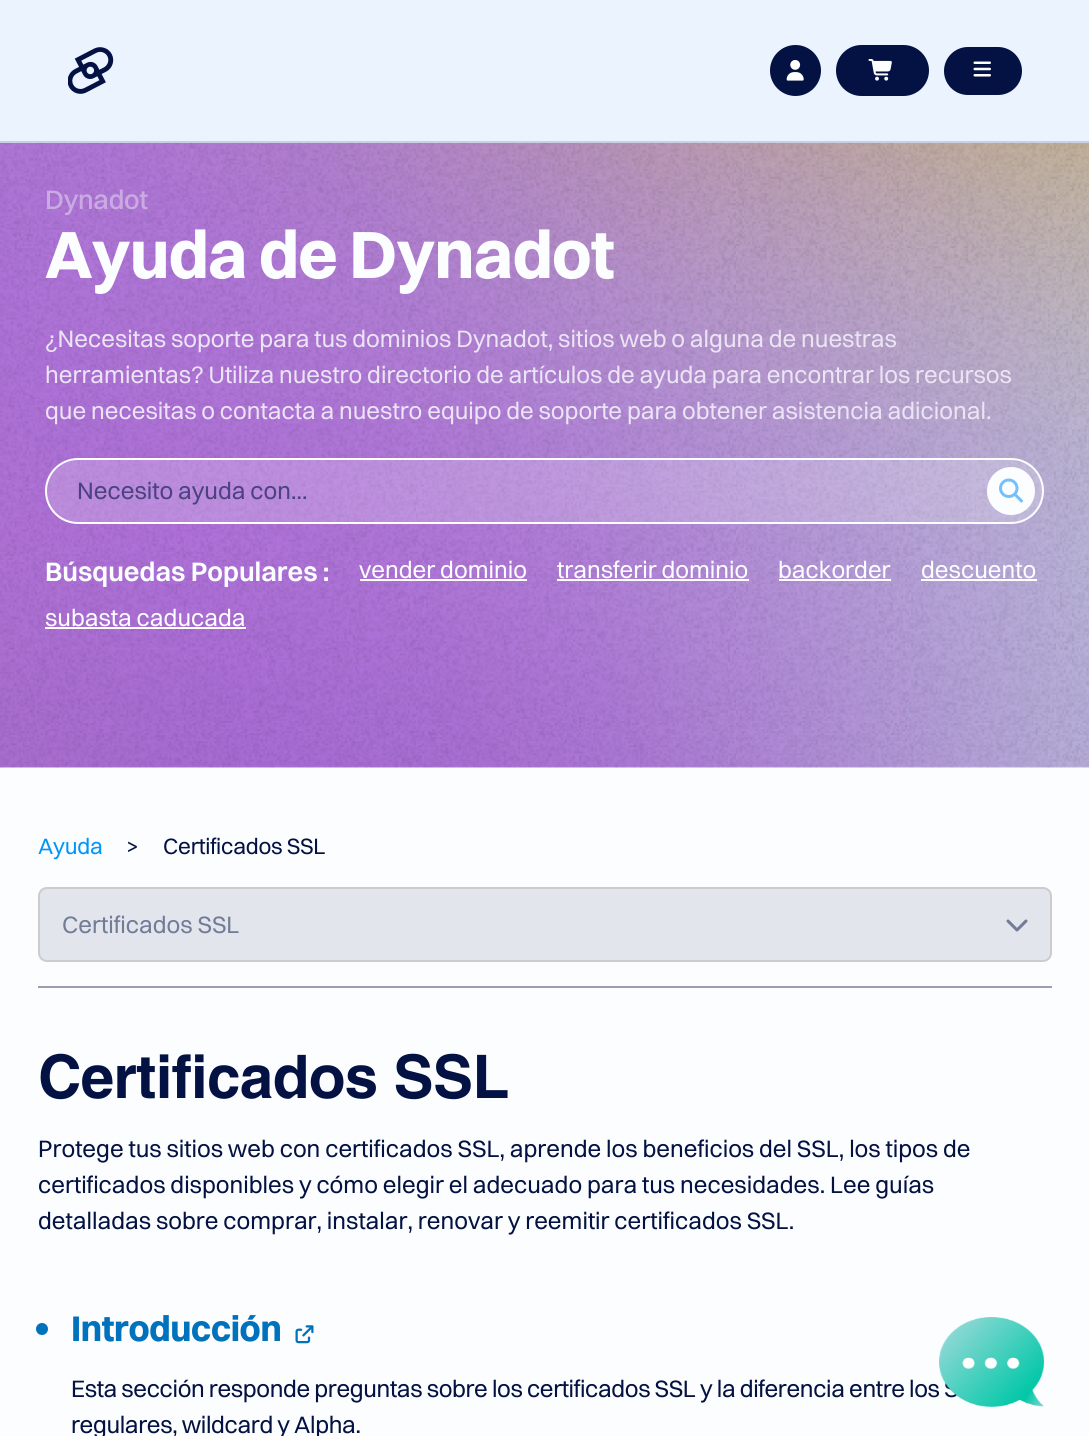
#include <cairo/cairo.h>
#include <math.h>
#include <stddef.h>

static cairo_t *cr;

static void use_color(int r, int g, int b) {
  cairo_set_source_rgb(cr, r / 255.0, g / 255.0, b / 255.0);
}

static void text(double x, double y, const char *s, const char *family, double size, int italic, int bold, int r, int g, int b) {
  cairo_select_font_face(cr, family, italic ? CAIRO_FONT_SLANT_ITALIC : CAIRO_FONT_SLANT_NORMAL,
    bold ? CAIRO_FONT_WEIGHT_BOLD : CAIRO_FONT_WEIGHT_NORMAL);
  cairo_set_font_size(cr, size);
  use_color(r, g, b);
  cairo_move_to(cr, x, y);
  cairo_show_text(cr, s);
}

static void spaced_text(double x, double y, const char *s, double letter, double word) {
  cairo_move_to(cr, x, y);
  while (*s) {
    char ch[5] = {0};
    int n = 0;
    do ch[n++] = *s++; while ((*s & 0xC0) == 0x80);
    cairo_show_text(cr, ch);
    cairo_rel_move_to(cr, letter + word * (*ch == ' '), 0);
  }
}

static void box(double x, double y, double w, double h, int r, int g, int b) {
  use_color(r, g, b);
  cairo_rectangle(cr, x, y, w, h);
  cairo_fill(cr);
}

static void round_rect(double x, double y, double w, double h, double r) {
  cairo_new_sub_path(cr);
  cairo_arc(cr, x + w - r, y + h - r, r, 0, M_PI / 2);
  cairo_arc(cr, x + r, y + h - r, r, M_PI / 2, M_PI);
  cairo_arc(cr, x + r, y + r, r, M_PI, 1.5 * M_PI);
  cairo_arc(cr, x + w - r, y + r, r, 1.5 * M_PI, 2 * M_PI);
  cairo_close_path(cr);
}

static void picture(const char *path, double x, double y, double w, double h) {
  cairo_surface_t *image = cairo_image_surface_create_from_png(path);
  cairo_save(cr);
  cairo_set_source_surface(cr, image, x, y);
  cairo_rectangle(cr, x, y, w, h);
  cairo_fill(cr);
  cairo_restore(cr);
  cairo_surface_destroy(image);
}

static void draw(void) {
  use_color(251, 253, 255);
  cairo_paint(cr);
  box(0, 0, 1089, 141, 235, 243, 255);
  box(0, 141, 1089, 2, 200, 209, 227);
  picture("img_01.png", 68, 47, 46, 47);
  use_color(3, 18, 66);
  cairo_arc(cr, 795.5, 70.5, 24.5, 0, 2 * M_PI);
  cairo_fill_preserve(cr);
  cairo_stroke(cr);
  picture("img_02.png", 786, 60, 18, 21);
  round_rect(837, 46, 91, 49, 24.5);
  cairo_fill_preserve(cr);
  cairo_stroke(cr);
  picture("img_03.png", 868, 59, 24, 22);
  round_rect(944, 47, 78, 48, 24);
  cairo_fill(cr);
  picture("img_04.png", 973, 61, 18, 16);
  picture("img_05.png", 0, 143, 1089, 625);
  cairo_set_source_rgba(cr, 0.984, 0.992, 1, 0.2);
  round_rect(46, 459, 997, 64, 32);
  cairo_fill_preserve(cr);
  use_color(251, 253, 255);
  cairo_stroke(cr);
  cairo_arc(cr, 1011, 491, 24, 0, 2 * M_PI);
  cairo_fill(cr);
  picture("img_06.png", 999, 478, 24, 25);
  box(360, 579, 167, 2, 255, 255, 255);
  box(557, 579, 192, 2, 255, 255, 255);
  box(779, 579, 112, 2, 255, 255, 255);
  box(921, 579, 116, 2, 255, 255, 255);
  box(45, 627, 201, 2, 255, 255, 255);
  use_color(226, 229, 236);
  round_rect(39, 888, 1012, 73, 8);
  cairo_fill_preserve(cr);
  use_color(204, 204, 204);
  cairo_stroke(cr);
  picture("img_07.png", 1006, 919, 22, 13);
  box(38, 986, 1014, 2, 152, 159, 179);
  use_color(0, 114, 188);
  cairo_arc(cr, 42, 1329, 6, 0, 2 * M_PI);
  cairo_fill(cr);
  picture("img_08.png", 295, 1325, 19, 19);
  cairo_select_font_face(cr, "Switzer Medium", CAIRO_FONT_SLANT_NORMAL, CAIRO_FONT_WEIGHT_NORMAL);
  cairo_set_font_size(cr, 27);
  use_color(202, 170, 227);
  spaced_text(45, 209, "Dynadot", -0.25, 0);
  cairo_select_font_face(cr, "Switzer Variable", CAIRO_FONT_SLANT_NORMAL, CAIRO_FONT_WEIGHT_BOLD);
  cairo_set_font_size(cr, 67.5);
  use_color(251, 253, 255);
  spaced_text(45, 278, "Ayuda de Dynadot", -0.7, 0);
  text(45, 347, "¿Necesitas soporte para tus dominios Dynadot, sitios web o alguna de nuestras", "Switzer Variable", 24, 0, 0, 235, 228, 245);
  text(45, 383, "herramientas? Utiliza nuestro directorio de artículos de ayuda para encontrar los recursos", "Switzer Variable", 24, 0, 0, 235, 228, 245);
  text(45, 419, "que necesitas o contacta a nuestro equipo de soporte para obtener asistencia adicional.", "Switzer Variable", 24, 0, 0, 235, 228, 245);
  text(77, 499, "Necesito ayuda con...", "Switzer Variable", 24, 0, 0, 76, 66, 127);
  text(45, 581, "Búsquedas Populares :", "Switzer SemiBold", 27, 0, 0, 251, 253, 255);
  text(359, 578, "vender dominio", "Switzer Variable", 24, 0, 0, 251, 253, 255);
  text(557, 578, "transferir dominio", "Switzer Variable", 24, 0, 0, 251, 253, 255);
  text(778, 578, "backorder", "Switzer Variable", 24, 0, 0, 251, 253, 255);
  text(921, 578, "descuento", "Switzer Variable", 24, 0, 0, 251, 253, 255);
  text(45, 626, "subasta caducada", "Switzer Variable", 24, 0, 0, 251, 253, 255);
  cairo_set_font_size(cr, 22.5);
  use_color(0, 150, 247);
  spaced_text(38, 854, "Ayuda", -0.25, 0);
  use_color(3, 18, 66);
  spaced_text(126, 854, ">", -0.25, 0);
  spaced_text(163, 854, "Certificados SSL", -0.25, 0);
  text(62, 933, "Certificados SSL", "Switzer Variable", 24, 0, 0, 115, 124, 151);
  cairo_select_font_face(cr, "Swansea", CAIRO_FONT_SLANT_NORMAL, CAIRO_FONT_WEIGHT_BOLD);
  cairo_set_font_size(cr, 60);
  use_color(3, 18, 66);
  spaced_text(38, 1098, "Certificados SSL", -0.6, 0);
  text(38, 1157, "Protege tus sitios web con certificados SSL, aprende los beneficios del SSL, los tipos de", "Switzer Variable", 24, 0, 0, 3, 18, 66);
  text(38, 1193, "certificados disponibles y cómo elegir el adecuado para tus necesidades. Lee guías", "Switzer Variable", 24, 0, 0, 3, 18, 66);
  text(38, 1229, "detalladas sobre comprar, instalar, renovar y reemitir certificados SSL.", "Switzer Variable", 24, 0, 0, 3, 18, 66);
  cairo_select_font_face(cr, "Switzer Variable", CAIRO_FONT_SLANT_NORMAL, CAIRO_FONT_WEIGHT_BOLD);
  cairo_set_font_size(cr, 36);
  use_color(0, 114, 188);
  spaced_text(71, 1341, "Introducción", -0.35, 0);
  cairo_select_font_face(cr, "Switzer Variable", CAIRO_FONT_SLANT_NORMAL, CAIRO_FONT_WEIGHT_NORMAL);
  cairo_set_font_size(cr, 24);
  use_color(3, 18, 66);
  spaced_text(71, 1397, "Esta sección responde preguntas sobre los certificados SSL y la diferencia entre los S", -0.35, 0);
  spaced_text(71, 1433, "regulares, wildcard y Alpha.", -0.35, 0);
  picture("img_09.png", 939, 1317, 105, 90);
}

int main(void) {
  cairo_surface_t *surface = cairo_image_surface_create(CAIRO_FORMAT_RGB24, 1089, 1436);
  cr = cairo_create(surface);
  cairo_font_options_t *options = cairo_font_options_create();
  cairo_font_options_set_hint_metrics(options, CAIRO_HINT_METRICS_OFF);
  cairo_font_options_set_hint_style(options, CAIRO_HINT_STYLE_NONE);
  cairo_set_font_options(cr, options);
  cairo_set_miter_limit(cr, 4);
  draw();
  cairo_surface_write_to_png(surface, "out.png");
  cairo_font_options_destroy(options);
  cairo_destroy(cr);
  cairo_surface_destroy(surface);
  return 0;
}
